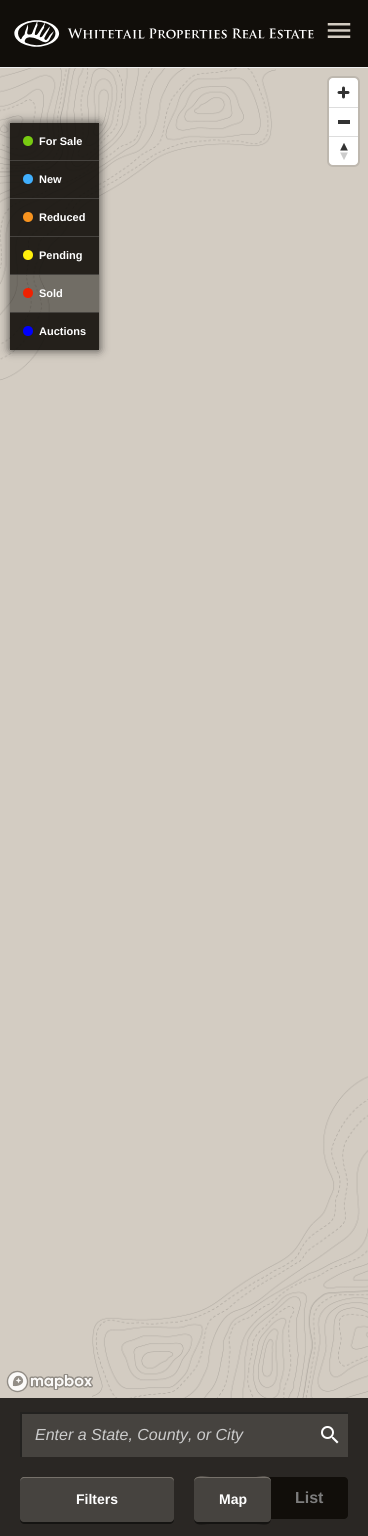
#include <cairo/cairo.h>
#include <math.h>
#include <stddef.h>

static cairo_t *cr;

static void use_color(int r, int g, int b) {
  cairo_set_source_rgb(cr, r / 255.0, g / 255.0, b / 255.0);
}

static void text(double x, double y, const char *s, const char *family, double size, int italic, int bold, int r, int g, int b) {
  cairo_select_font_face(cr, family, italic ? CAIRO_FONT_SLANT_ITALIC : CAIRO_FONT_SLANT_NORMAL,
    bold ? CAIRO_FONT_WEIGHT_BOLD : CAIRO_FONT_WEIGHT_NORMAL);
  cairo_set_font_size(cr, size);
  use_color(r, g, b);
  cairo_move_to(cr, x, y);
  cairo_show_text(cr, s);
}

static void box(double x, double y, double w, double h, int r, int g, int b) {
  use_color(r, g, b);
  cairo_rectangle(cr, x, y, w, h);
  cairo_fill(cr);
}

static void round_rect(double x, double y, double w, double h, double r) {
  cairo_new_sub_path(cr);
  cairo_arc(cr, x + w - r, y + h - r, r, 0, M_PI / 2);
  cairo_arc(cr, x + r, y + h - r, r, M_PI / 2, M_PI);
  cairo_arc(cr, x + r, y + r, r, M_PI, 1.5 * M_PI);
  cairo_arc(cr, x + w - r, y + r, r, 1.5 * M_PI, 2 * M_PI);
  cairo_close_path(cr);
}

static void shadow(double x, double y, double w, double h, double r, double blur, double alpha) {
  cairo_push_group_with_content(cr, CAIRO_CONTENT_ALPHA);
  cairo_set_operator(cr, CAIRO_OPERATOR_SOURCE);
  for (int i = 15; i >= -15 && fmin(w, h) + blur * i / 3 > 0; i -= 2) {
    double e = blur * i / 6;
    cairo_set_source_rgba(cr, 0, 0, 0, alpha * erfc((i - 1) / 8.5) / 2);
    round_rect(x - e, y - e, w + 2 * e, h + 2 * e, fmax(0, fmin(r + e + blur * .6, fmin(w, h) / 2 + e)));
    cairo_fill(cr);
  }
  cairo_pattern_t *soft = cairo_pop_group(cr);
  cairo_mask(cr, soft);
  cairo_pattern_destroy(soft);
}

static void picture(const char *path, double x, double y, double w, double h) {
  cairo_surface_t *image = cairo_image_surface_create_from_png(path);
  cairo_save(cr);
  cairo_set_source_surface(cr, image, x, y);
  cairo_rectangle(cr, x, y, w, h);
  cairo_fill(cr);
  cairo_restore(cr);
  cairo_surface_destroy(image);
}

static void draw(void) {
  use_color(238, 238, 238);
  cairo_paint(cr);
  box(0, 0, 368, 67, 17, 14, 10);
  picture("img_01.png", 14, 20, 300, 27);
  picture("img_02.png", 327, 23, 24, 15);
  box(0, 68, 368, 1330, 211, 204, 194);
  picture("img_03.png", 0, 68, 368, 1330);
  round_rect(328, 77, 31, 89, 5);
  use_color(190, 184, 175);
  cairo_stroke(cr);
  use_color(255, 255, 255);
  round_rect(329, 78, 29, 87, 4);
  cairo_fill(cr);
  picture("img_04.png", 337, 86, 13, 13);
  box(329, 107, 29, 1, 221, 221, 221);
  box(338, 120, 12, 4, 51, 51, 51);
  box(329, 136, 29, 1, 221, 221, 221);
  picture("img_05.png", 340, 143, 8, 17);
  picture("img_06.png", 6, 1370, 87, 23);
  cairo_save(cr);
  cairo_set_fill_rule(cr, CAIRO_FILL_RULE_EVEN_ODD);
  cairo_new_path(cr);
  cairo_move_to(cr, 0, 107);
  cairo_line_to(cr, 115, 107);
  cairo_line_to(cr, 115, 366);
  cairo_line_to(cr, 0, 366);
  cairo_close_path(cr);
  cairo_move_to(cr, 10, 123);
  cairo_line_to(cr, 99, 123);
  cairo_line_to(cr, 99, 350);
  cairo_line_to(cr, 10, 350);
  cairo_close_path(cr);
  cairo_clip(cr);
  use_color(0, 0, 0);
  shadow(10, 123, 89, 227, 0, 5, 0.7);
  cairo_restore(cr);
  cairo_set_source_rgba(cr, 0.067, 0.055, 0.039, 0.9);
  cairo_rectangle(cr, 10, 123, 89, 37);
  cairo_fill(cr);
  box(10, 160, 89, 1, 70, 67, 63);
  use_color(120, 203, 17);
  cairo_arc(cr, 28, 141, 5, 0, 2 * M_PI);
  cairo_fill(cr);
  cairo_set_source_rgba(cr, 0.067, 0.055, 0.039, 0.9);
  cairo_rectangle(cr, 10, 161, 89, 37);
  cairo_fill(cr);
  box(10, 198, 89, 1, 70, 67, 63);
  use_color(64, 175, 253);
  cairo_arc(cr, 28, 179, 5, 0, 2 * M_PI);
  cairo_fill(cr);
  cairo_set_source_rgba(cr, 0.067, 0.055, 0.039, 0.9);
  cairo_rectangle(cr, 10, 199, 89, 37);
  cairo_fill(cr);
  box(10, 236, 89, 1, 70, 67, 63);
  use_color(247, 147, 31);
  cairo_arc(cr, 28, 217, 5, 0, 2 * M_PI);
  cairo_fill(cr);
  cairo_set_source_rgba(cr, 0.067, 0.055, 0.039, 0.9);
  cairo_rectangle(cr, 10, 237, 89, 37);
  cairo_fill(cr);
  box(10, 274, 89, 1, 70, 67, 63);
  use_color(255, 239, 12);
  cairo_arc(cr, 28, 255, 5, 0, 2 * M_PI);
  cairo_fill(cr);
  cairo_set_source_rgba(cr, 0.067, 0.055, 0.039, 0.5);
  cairo_rectangle(cr, 10, 275, 89, 37);
  cairo_fill(cr);
  box(10, 312, 89, 1, 70, 67, 63);
  use_color(239, 33, 1);
  cairo_arc(cr, 28, 293, 5, 0, 2 * M_PI);
  cairo_fill(cr);
  cairo_set_source_rgba(cr, 0.067, 0.055, 0.039, 0.9);
  cairo_rectangle(cr, 10, 313, 89, 37);
  cairo_fill(cr);
  use_color(0, 0, 254);
  cairo_arc(cr, 28, 331, 5, 0, 2 * M_PI);
  cairo_fill(cr);
  box(0, 1398, 368, 138, 42, 39, 36);
  box(22, 1414, 326, 43, 70, 67, 63);
  cairo_save(cr);
  cairo_rectangle(cr, 20, 1412, 328, 45);
  cairo_clip(cr);
  use_color(35, 34, 32);
  cairo_set_fill_rule(cr, CAIRO_FILL_RULE_EVEN_ODD);
  cairo_new_path(cr);
  cairo_move_to(cr, -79, 1313);
  cairo_line_to(cr, 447, 1313);
  cairo_line_to(cr, 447, 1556);
  cairo_line_to(cr, -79, 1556);
  cairo_close_path(cr);
  cairo_move_to(cr, 22, 1414);
  cairo_line_to(cr, 350, 1414);
  cairo_line_to(cr, 350, 1459);
  cairo_line_to(cr, 22, 1459);
  cairo_close_path(cr);
  cairo_fill(cr);
  cairo_restore(cr);
  picture("img_07.png", 321, 1426, 18, 18);
  use_color(21, 20, 18);
  cairo_new_path(cr);
  cairo_move_to(cr, 20, 1518);
  cairo_line_to(cr, 20, 1520);
  cairo_curve_to(cr, 20, 1522, 22, 1524, 24, 1524);
  cairo_line_to(cr, 170, 1524);
  cairo_curve_to(cr, 172, 1524, 174, 1522, 174, 1520);
  cairo_line_to(cr, 174, 1518);
  cairo_curve_to(cr, 174, 1520, 172, 1522, 170, 1522);
  cairo_line_to(cr, 24, 1522);
  cairo_line_to(cr, 21, 1521);
  cairo_close_path(cr);
  cairo_fill(cr);
  use_color(70, 67, 63);
  round_rect(20, 1477, 154, 45, 4);
  cairo_fill(cr);
  use_color(118, 113, 106);
  cairo_new_path(cr);
  cairo_move_to(cr, 24, 1478);
  cairo_line_to(cr, 170, 1478);
  cairo_curve_to(cr, 172, 1478, 174, 1480, 174, 1482);
  cairo_curve_to(cr, 174, 1479, 173, 1477, 170, 1477);
  cairo_line_to(cr, 23, 1477);
  cairo_curve_to(cr, 21, 1478, 20, 1480, 20, 1482);
  cairo_curve_to(cr, 20, 1480, 22, 1478, 24, 1478);
  cairo_close_path(cr);
  cairo_fill(cr);
  use_color(17, 14, 10);
  round_rect(194, 1477, 154, 42, 4);
  cairo_fill(cr);
  use_color(21, 20, 18);
  cairo_new_path(cr);
  cairo_move_to(cr, 194, 1518);
  cairo_curve_to(cr, 194, 1527, 202, 1524, 210, 1524);
  cairo_line_to(cr, 256, 1524);
  cairo_curve_to(cr, 263, 1524, 271, 1527, 271, 1518);
  cairo_curve_to(cr, 271, 1520, 269, 1522, 267, 1522);
  cairo_line_to(cr, 198, 1522);
  cairo_curve_to(cr, 196, 1522, 194, 1520, 194, 1518);
  cairo_close_path(cr);
  cairo_fill(cr);
  use_color(70, 67, 63);
  round_rect(194, 1477, 77, 45, 4);
  cairo_fill(cr);
  use_color(118, 113, 106);
  cairo_new_path(cr);
  cairo_move_to(cr, 198, 1478);
  cairo_line_to(cr, 267, 1478);
  cairo_curve_to(cr, 269, 1478, 271, 1480, 271, 1482);
  cairo_curve_to(cr, 271, 1474, 260, 1477, 256, 1477);
  cairo_line_to(cr, 210, 1477);
  cairo_curve_to(cr, 205, 1477, 194, 1474, 194, 1482);
  cairo_curve_to(cr, 194, 1480, 196, 1478, 198, 1478);
  cairo_close_path(cr);
  cairo_fill(cr);
  text(39, 145, "For Sale", "Liberation Sans", 11, 0, 1, 255, 255, 255);
  text(39, 183, "New", "Liberation Sans", 11, 0, 1, 255, 255, 255);
  text(39, 221, "Reduced", "Liberation Sans", 11, 0, 1, 255, 255, 255);
  text(39, 259, "Pending", "Liberation Sans", 11, 0, 1, 255, 255, 255);
  text(39, 297, "Sold", "Liberation Sans", 11, 0, 1, 255, 255, 255);
  text(39, 335, "Auctions", "Liberation Sans", 11, 0, 1, 255, 255, 255);
  text(35, 1440, "Enter a State, County, or City", "Liberation Sans", 16, 1, 0, 204, 204, 204);
  text(76, 1504, "Filters", "Liberation Sans", 14, 0, 1, 255, 255, 255);
  text(219, 1504, "Map", "Liberation Sans", 14, 0, 1, 255, 255, 255);
  text(295, 1503, "List", "Liberation Sans", 16, 0, 1, 125, 125, 125);
}

int main(void) {
  cairo_surface_t *surface = cairo_image_surface_create(CAIRO_FORMAT_RGB24, 368, 1536);
  cr = cairo_create(surface);
  cairo_font_options_t *options = cairo_font_options_create();
  cairo_font_options_set_hint_metrics(options, CAIRO_HINT_METRICS_OFF);
  cairo_font_options_set_hint_style(options, CAIRO_HINT_STYLE_NONE);
  cairo_set_font_options(cr, options);
  cairo_set_miter_limit(cr, 4);
  draw();
  cairo_surface_write_to_png(surface, "out.png");
  cairo_font_options_destroy(options);
  cairo_destroy(cr);
  cairo_surface_destroy(surface);
  return 0;
}
